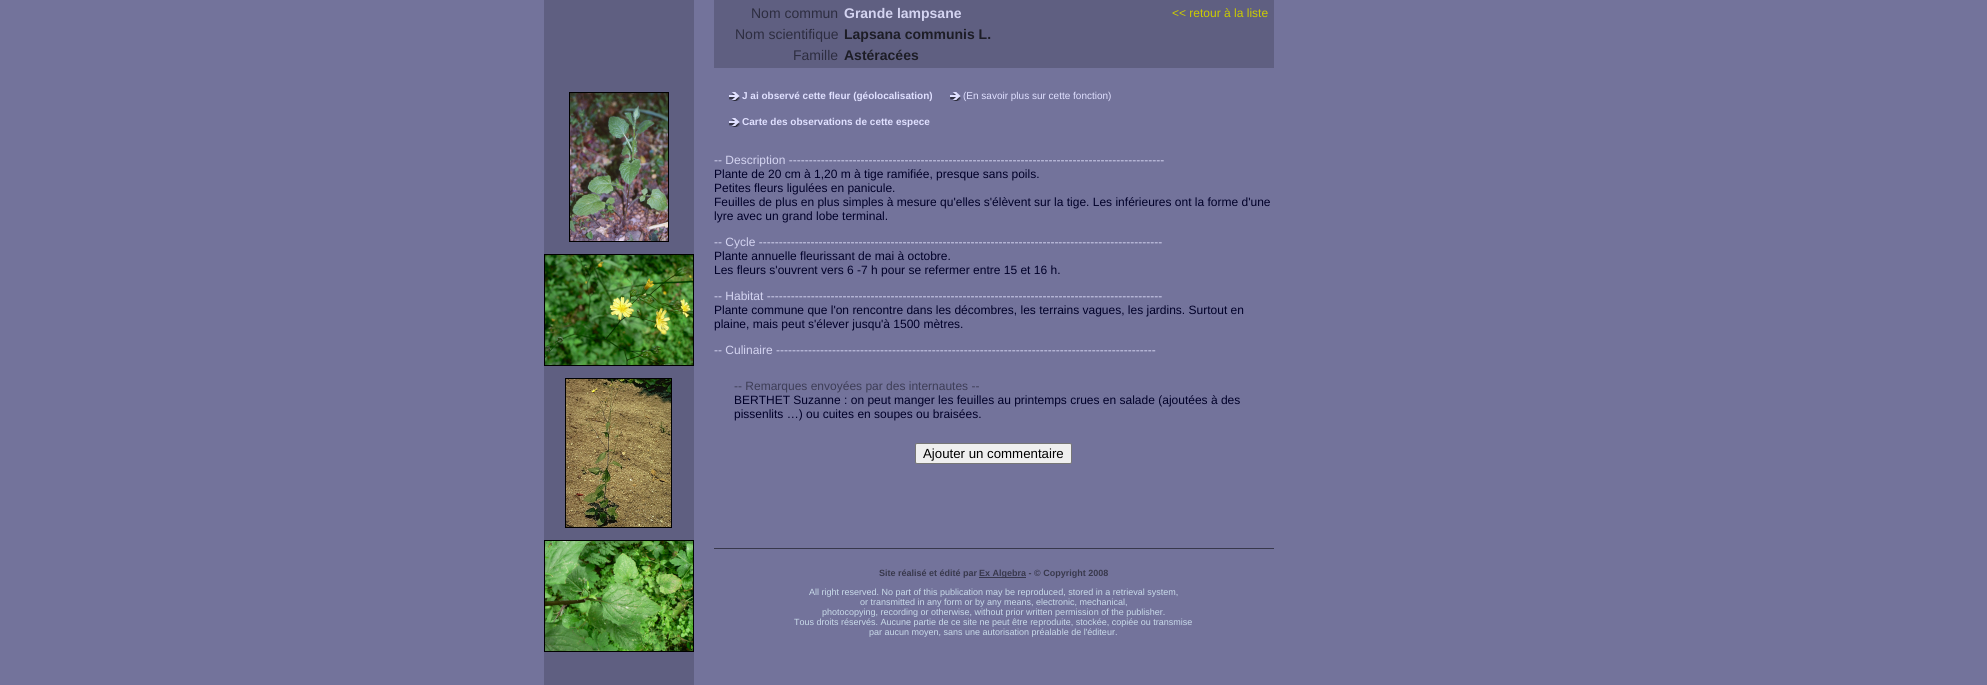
#include <cairo/cairo.h>
#include <math.h>
#include <stddef.h>

static cairo_t *cr;

static void use_color(int r, int g, int b) {
  cairo_set_source_rgb(cr, r / 255.0, g / 255.0, b / 255.0);
}

static void text(double x, double y, const char *s, const char *family, double size, int italic, int bold, int r, int g, int b) {
  cairo_select_font_face(cr, family, italic ? CAIRO_FONT_SLANT_ITALIC : CAIRO_FONT_SLANT_NORMAL,
    bold ? CAIRO_FONT_WEIGHT_BOLD : CAIRO_FONT_WEIGHT_NORMAL);
  cairo_set_font_size(cr, size);
  use_color(r, g, b);
  cairo_move_to(cr, x, y);
  cairo_show_text(cr, s);
}

static void box(double x, double y, double w, double h, int r, int g, int b) {
  use_color(r, g, b);
  cairo_rectangle(cr, x, y, w, h);
  cairo_fill(cr);
}

static void round_rect(double x, double y, double w, double h, double r) {
  cairo_new_sub_path(cr);
  cairo_arc(cr, x + w - r, y + h - r, r, 0, M_PI / 2);
  cairo_arc(cr, x + r, y + h - r, r, M_PI / 2, M_PI);
  cairo_arc(cr, x + r, y + r, r, M_PI, 1.5 * M_PI);
  cairo_arc(cr, x + w - r, y + r, r, 1.5 * M_PI, 2 * M_PI);
  cairo_close_path(cr);
}

static void picture(const char *path, double x, double y, double w, double h) {
  cairo_surface_t *image = cairo_image_surface_create_from_png(path);
  cairo_save(cr);
  cairo_set_source_surface(cr, image, x, y);
  cairo_rectangle(cr, x, y, w, h);
  cairo_fill(cr);
  cairo_restore(cr);
  cairo_surface_destroy(image);
}

static void draw(void) {
  use_color(115, 115, 155);
  cairo_paint(cr);
  box(544, 0, 150, 685, 95, 95, 129);
  picture("img_01.png", 569, 92, 100, 150);
  picture("img_02.png", 544, 254, 150, 112);
  picture("img_03.png", 565, 378, 107, 150);
  picture("img_04.png", 544, 540, 150, 112);
  box(714, 0, 560, 68, 95, 95, 129);
  picture("img_05.png", 729, 92, 11, 9);
  picture("img_05.png", 950, 92, 11, 9);
  picture("img_05.png", 729, 118, 11, 9);
  use_color(239, 239, 239);
  round_rect(915.5, 443.5, 156, 20, 1.5);
  cairo_fill_preserve(cr);
  use_color(118, 118, 118);
  cairo_set_line_width(cr, 1);
  cairo_stroke(cr);
  box(714, 548, 560, 1, 56, 56, 76);
  box(979, 577, 47, 1, 56, 56, 76);
  text(751, 18, "Nom commun", "Liberation Sans", 14, 0, 0, 45, 45, 64);
  text(844, 18, "Grande lampsane", "Liberation Sans", 14, 0, 1, 212, 212, 241);
  text(1172, 17, "<< retour à la liste", "Liberation Sans", 12, 0, 0, 204, 204, 0);
  text(735, 39, "Nom scientifique", "Liberation Sans", 14, 0, 0, 45, 45, 64);
  text(844, 39, "Lapsana communis L.", "Liberation Sans", 14, 0, 1, 29, 29, 38);
  text(793, 60, "Famille", "Liberation Sans", 14, 0, 0, 45, 45, 64);
  text(844, 60, "Astéracées", "Liberation Sans", 14, 0, 1, 29, 29, 38);
  text(742, 99, "J ai observé cette fleur (géolocalisation)", "Liberation Sans", 10, 0, 1, 224, 224, 255);
  text(963, 99, "(En savoir plus sur cette fonction)", "Liberation Sans", 10, 0, 0, 224, 224, 255);
  text(742, 125, "Carte des observations de cette espece", "Liberation Sans", 10, 0, 1, 224, 224, 255);
  text(714, 164, "-- Description ----------------------------------------------------------------------------------------------", "Liberation Sans", 12, 0, 0, 212, 212, 241);
  text(714, 178, "Plante de 20 cm à 1,20 m à tige ramifiée, presque sans poils.", "Liberation Sans", 12, 0, 0, 0, 0, 40);
  text(714, 192, "Petites fleurs ligulées en panicule.", "Liberation Sans", 12, 0, 0, 0, 0, 40);
  text(714, 206, "Feuilles de plus en plus simples à mesure qu'elles s'élèvent sur la tige. Les inférieures ont la forme d'une", "Liberation Sans", 12, 0, 0, 0, 0, 40);
  text(714, 220, "lyre avec un grand lobe terminal.", "Liberation Sans", 12, 0, 0, 0, 0, 40);
  text(714, 246, "-- Cycle -----------------------------------------------------------------------------------------------------", "Liberation Sans", 12, 0, 0, 212, 212, 241);
  text(714, 260, "Plante annuelle fleurissant de mai à octobre.", "Liberation Sans", 12, 0, 0, 0, 0, 40);
  text(714, 274, "Les fleurs s'ouvrent vers 6 -7 h pour se refermer entre 15 et 16 h.", "Liberation Sans", 12, 0, 0, 0, 0, 40);
  text(714, 300, "-- Habitat ---------------------------------------------------------------------------------------------------", "Liberation Sans", 12, 0, 0, 212, 212, 241);
  text(714, 314, "Plante commune que l'on rencontre dans les décombres, les terrains vagues, les jardins. Surtout en", "Liberation Sans", 12, 0, 0, 0, 0, 40);
  text(714, 328, "plaine, mais peut s'élever jusqu'à 1500 mètres.", "Liberation Sans", 12, 0, 0, 0, 0, 40);
  text(714, 354, "-- Culinaire -----------------------------------------------------------------------------------------------", "Liberation Sans", 12, 0, 0, 212, 212, 241);
  text(734, 390, "-- Remarques envoyées par des internautes --", "Liberation Sans", 12, 0, 0, 61, 61, 86);
  text(734, 404, "BERTHET Suzanne : on peut manger les feuilles au printemps crues en salade (ajoutées à des", "Liberation Sans", 12, 0, 0, 0, 0, 40);
  text(734, 418, "pissenlits …) ou cuites en soupes ou braisées.", "Liberation Sans", 12, 0, 0, 0, 0, 40);
  text(923, 458, "Ajouter un commentaire", "Liberation Sans", 13.25, 0, 0, 0, 0, 0);
  text(879, 576, "Site réalisé et édité par", "Liberation Sans", 9, 0, 1, 56, 56, 76);
  text(979, 576, "Ex Algebra - © Copyright 2008", "Liberation Sans", 9, 0, 1, 56, 56, 76);
  text(809, 595, "All right reserved. No part of this publication may be reproduced, stored in a retrieval system,", "Liberation Sans", 9, 0, 0, 201, 219, 234);
  text(860, 605, "or transmitted in any form or by any means, electronic, mechanical,", "Liberation Sans", 9, 0, 0, 201, 219, 234);
  text(822, 615, "photocopying, recording or otherwise, without prior written permission of the publisher.", "Liberation Sans", 9, 0, 0, 201, 219, 234);
  text(794, 625, "Tous droits réservés. Aucune partie de ce site ne peut être reproduite, stockée, copiée ou transmise", "Liberation Sans", 9, 0, 0, 201, 219, 234);
  text(869, 635, "par aucun moyen, sans une autorisation préalable de l'éditeur.", "Liberation Sans", 9, 0, 0, 201, 219, 234);
}

int main(void) {
  cairo_surface_t *surface = cairo_image_surface_create(CAIRO_FORMAT_RGB24, 1987, 685);
  cr = cairo_create(surface);
  cairo_font_options_t *options = cairo_font_options_create();
  cairo_font_options_set_hint_metrics(options, CAIRO_HINT_METRICS_OFF);
  cairo_font_options_set_hint_style(options, CAIRO_HINT_STYLE_NONE);
  cairo_set_font_options(cr, options);
  cairo_set_miter_limit(cr, 4);
  draw();
  cairo_surface_write_to_png(surface, "out.png");
  cairo_font_options_destroy(options);
  cairo_destroy(cr);
  cairo_surface_destroy(surface);
  return 0;
}
